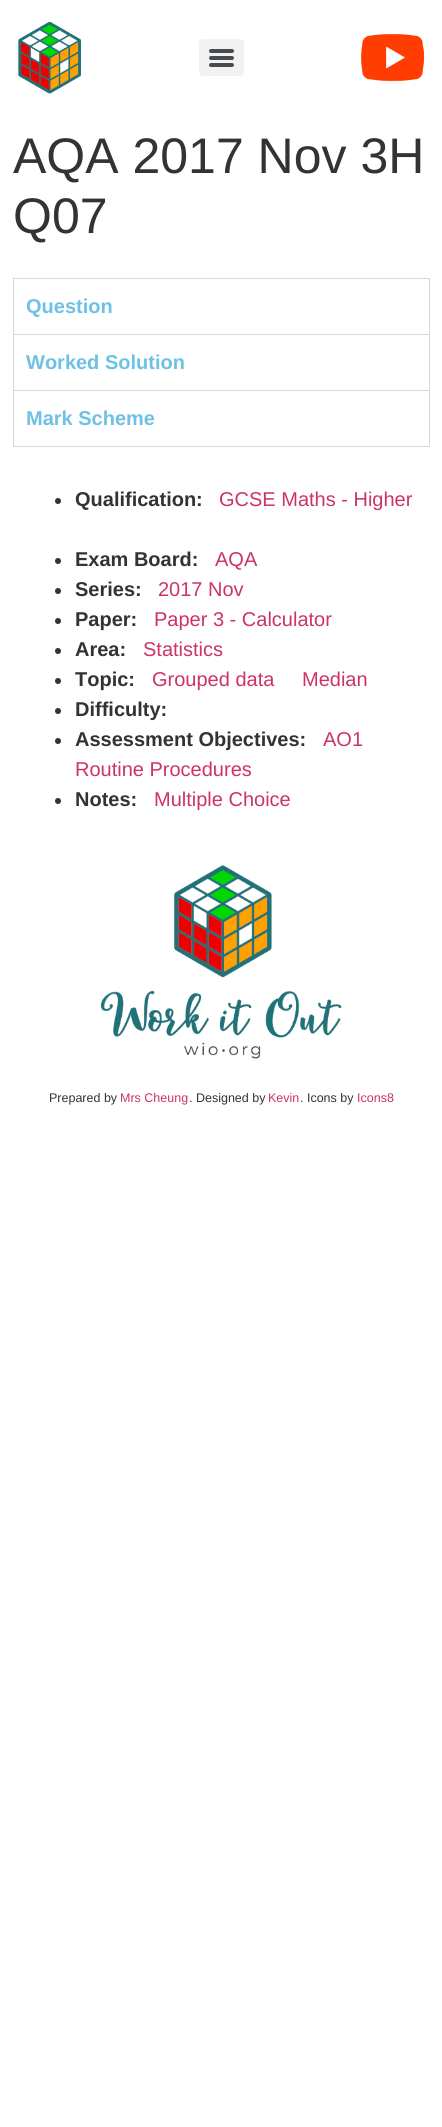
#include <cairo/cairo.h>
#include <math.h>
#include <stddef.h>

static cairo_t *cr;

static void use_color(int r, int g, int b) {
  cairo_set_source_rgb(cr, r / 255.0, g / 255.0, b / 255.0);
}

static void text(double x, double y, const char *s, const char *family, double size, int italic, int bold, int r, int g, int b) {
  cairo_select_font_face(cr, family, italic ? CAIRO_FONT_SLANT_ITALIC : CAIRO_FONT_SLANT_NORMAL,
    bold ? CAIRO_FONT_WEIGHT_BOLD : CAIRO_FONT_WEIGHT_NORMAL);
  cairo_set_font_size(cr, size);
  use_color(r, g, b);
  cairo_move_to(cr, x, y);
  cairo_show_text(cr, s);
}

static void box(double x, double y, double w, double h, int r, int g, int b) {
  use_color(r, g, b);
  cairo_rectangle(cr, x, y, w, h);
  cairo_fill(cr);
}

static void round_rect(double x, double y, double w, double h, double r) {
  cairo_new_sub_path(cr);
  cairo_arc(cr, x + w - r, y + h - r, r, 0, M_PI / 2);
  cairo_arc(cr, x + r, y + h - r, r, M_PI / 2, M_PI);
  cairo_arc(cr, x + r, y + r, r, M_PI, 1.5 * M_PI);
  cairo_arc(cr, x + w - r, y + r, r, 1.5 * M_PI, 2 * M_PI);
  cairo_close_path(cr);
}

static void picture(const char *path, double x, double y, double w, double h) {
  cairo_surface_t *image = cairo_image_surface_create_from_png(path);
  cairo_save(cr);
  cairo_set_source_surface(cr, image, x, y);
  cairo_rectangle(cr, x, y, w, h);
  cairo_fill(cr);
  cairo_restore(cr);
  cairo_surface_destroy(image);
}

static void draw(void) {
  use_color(255, 255, 255);
  cairo_paint(cr);
  picture("img_01.png", 18, 21, 64, 73);
  use_color(242, 242, 242);
  round_rect(199, 39, 45, 37, 4);
  cairo_fill(cr);
  use_color(73, 76, 79);
  round_rect(209, 56, 25, 4, 2);
  cairo_fill(cr);
  round_rect(209, 49, 25, 4, 2);
  cairo_fill(cr);
  round_rect(209, 63, 25, 4, 2);
  cairo_fill(cr);
  picture("img_02.png", 361, 33, 64, 49);
  box(13, 446, 417, 1, 213, 216, 220);
  box(13, 278, 417, 1, 213, 216, 220);
  box(429, 278, 1, 56, 213, 216, 220);
  box(13, 278, 1, 56, 213, 216, 220);
  box(13, 334, 417, 1, 213, 216, 220);
  box(429, 334, 1, 56, 213, 216, 220);
  box(13, 334, 1, 56, 213, 216, 220);
  box(13, 390, 417, 1, 213, 216, 220);
  box(429, 390, 1, 56, 213, 216, 220);
  box(13, 390, 1, 56, 213, 216, 220);
  use_color(51, 51, 51);
  cairo_arc(cr, 58, 501, 3, 0, 2 * M_PI);
  cairo_fill(cr);
  cairo_arc(cr, 58, 561, 3, 0, 2 * M_PI);
  cairo_fill(cr);
  cairo_arc(cr, 58, 591, 3, 0, 2 * M_PI);
  cairo_fill(cr);
  cairo_arc(cr, 58, 621, 3, 0, 2 * M_PI);
  cairo_fill(cr);
  cairo_arc(cr, 58, 651, 3, 0, 2 * M_PI);
  cairo_fill(cr);
  cairo_arc(cr, 58, 681, 3, 0, 2 * M_PI);
  cairo_fill(cr);
  cairo_arc(cr, 58, 711, 3, 0, 2 * M_PI);
  cairo_fill(cr);
  cairo_arc(cr, 58, 741, 3, 0, 2 * M_PI);
  cairo_fill(cr);
  cairo_arc(cr, 58, 801, 3, 0, 2 * M_PI);
  cairo_fill(cr);
  picture("img_03.png", 100, 865, 242, 194);
  text(13, 173, "AQA 2017 Nov 3H", "Liberation Sans", 50, 0, 0, 51, 51, 51);
  text(13, 233, "Q07", "Liberation Sans", 50, 0, 0, 51, 51, 51);
  text(26, 313, "Question", "Liberation Sans", 20, 0, 1, 110, 193, 228);
  text(26, 369, "Worked Solution", "Liberation Sans", 20, 0, 1, 110, 193, 228);
  text(26, 425, "Mark Scheme", "Liberation Sans", 20, 0, 1, 110, 193, 228);
  text(75, 506, "Qualification:", "Liberation Sans", 20, 0, 1, 51, 51, 51);
  text(219, 506, "GCSE Maths - Higher", "Liberation Sans", 20, 0, 0, 204, 51, 102);
  text(75, 566, "Exam Board:", "Liberation Sans", 20, 0, 1, 51, 51, 51);
  text(215, 566, "AQA", "Liberation Sans", 20, 0, 0, 204, 51, 102);
  text(75, 596, "Series:", "Liberation Sans", 20, 0, 1, 51, 51, 51);
  text(158, 596, "2017 Nov", "Liberation Sans", 20, 0, 0, 204, 51, 102);
  text(75, 626, "Paper:", "Liberation Sans", 20, 0, 1, 51, 51, 51);
  text(154, 626, "Paper 3 - Calculator", "Liberation Sans", 20, 0, 0, 204, 51, 102);
  text(75, 656, "Area:", "Liberation Sans", 20, 0, 1, 51, 51, 51);
  text(143, 656, "Statistics", "Liberation Sans", 20, 0, 0, 204, 51, 102);
  text(75, 686, "Topic:", "Liberation Sans", 20, 0, 1, 51, 51, 51);
  text(152, 686, "Grouped data", "Liberation Sans", 20, 0, 0, 204, 51, 102);
  text(302, 686, "Median", "Liberation Sans", 20, 0, 0, 204, 51, 102);
  text(75, 716, "Difficulty:", "Liberation Sans", 20, 0, 1, 51, 51, 51);
  text(75, 746, "Assessment Objectives:", "Liberation Sans", 20, 0, 1, 51, 51, 51);
  text(323, 746, "AO1", "Liberation Sans", 20, 0, 0, 204, 51, 102);
  text(75, 776, "Routine Procedures", "Liberation Sans", 20, 0, 0, 204, 51, 102);
  text(75, 806, "Notes:", "Liberation Sans", 20, 0, 1, 51, 51, 51);
  text(154, 806, "Multiple Choice", "Liberation Sans", 20, 0, 0, 204, 51, 102);
  text(49, 1102, "Prepared by", "Liberation Sans", 12.5, 0, 0, 51, 51, 51);
  text(120, 1102, "Mrs Cheung", "Liberation Sans", 12.5, 0, 0, 204, 51, 102);
  text(189, 1102, ". Designed by", "Liberation Sans", 12.5, 0, 0, 51, 51, 51);
  text(268, 1102, "Kevin", "Liberation Sans", 12.5, 0, 0, 204, 51, 102);
  text(300, 1102, ". Icons by", "Liberation Sans", 12.5, 0, 0, 51, 51, 51);
  text(357, 1102, "Icons8", "Liberation Sans", 12.5, 0, 0, 204, 51, 102);
}

int main(void) {
  cairo_surface_t *surface = cairo_image_surface_create(CAIRO_FORMAT_RGB24, 442, 2127);
  cr = cairo_create(surface);
  cairo_font_options_t *options = cairo_font_options_create();
  cairo_font_options_set_hint_metrics(options, CAIRO_HINT_METRICS_OFF);
  cairo_font_options_set_hint_style(options, CAIRO_HINT_STYLE_NONE);
  cairo_set_font_options(cr, options);
  cairo_set_miter_limit(cr, 4);
  draw();
  cairo_surface_write_to_png(surface, "out.png");
  cairo_font_options_destroy(options);
  cairo_destroy(cr);
  cairo_surface_destroy(surface);
  return 0;
}
